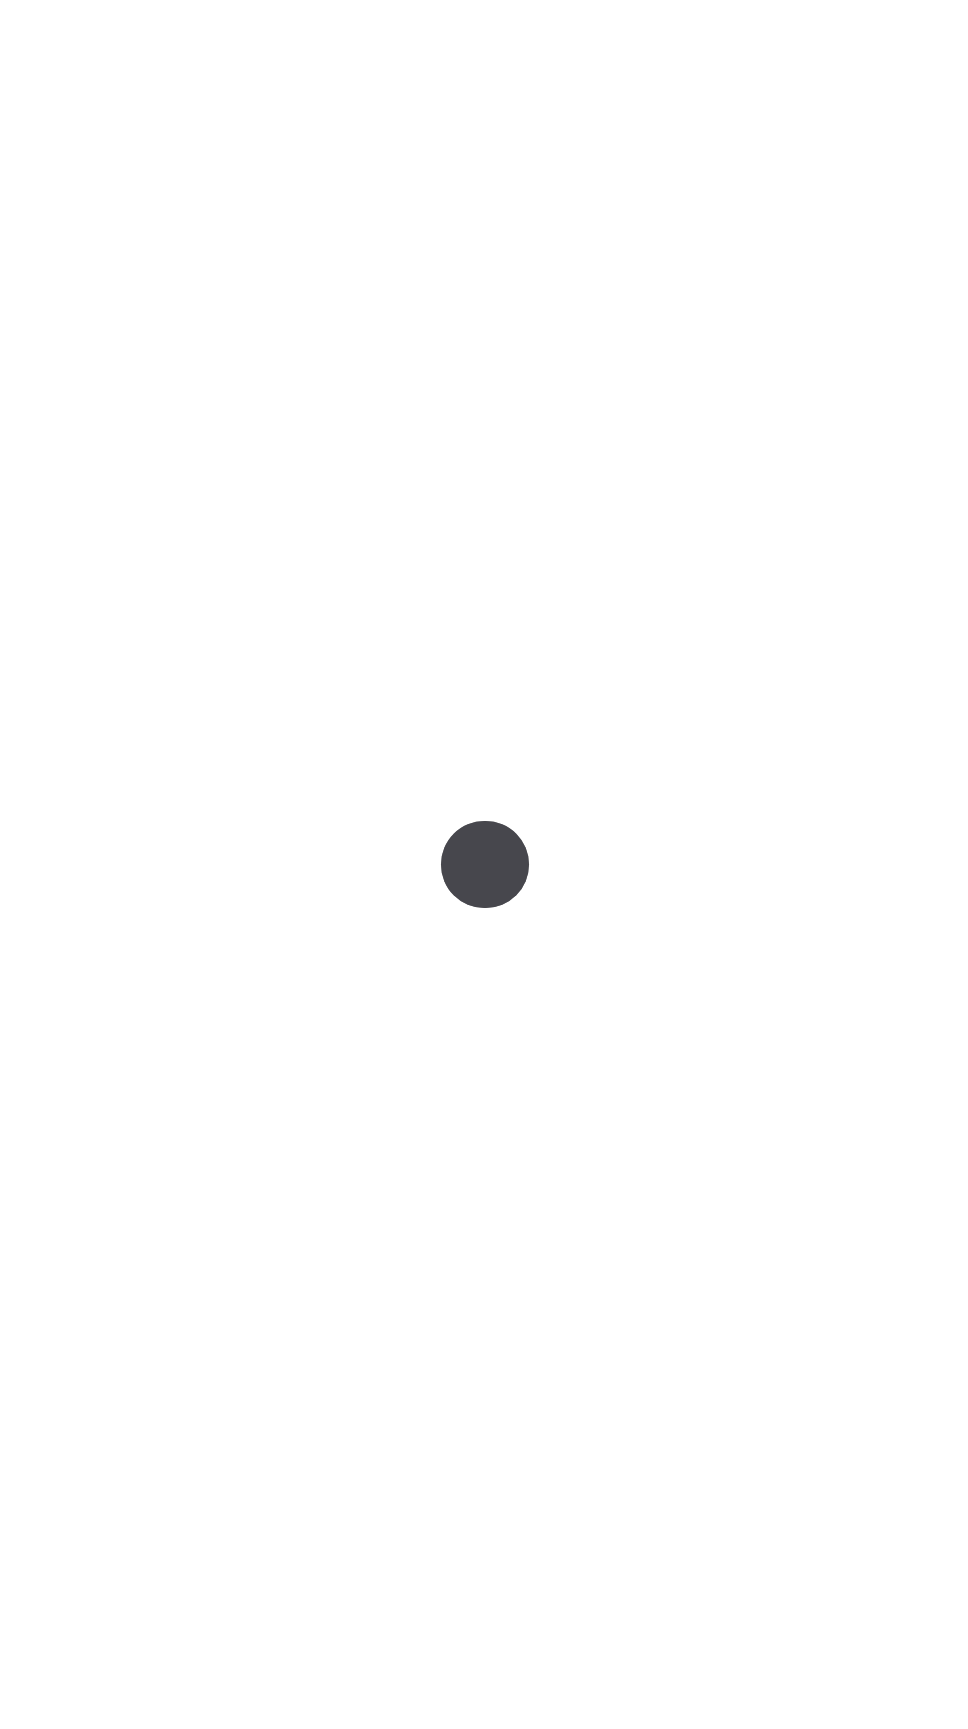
void draw(SkCanvas* canvas) {
    SkPaint paint;
    paint.setAntiAlias(true);
    canvas->clear(0xFFFFFFFF);
    paint.setColor(0xFF65656A);
    canvas->drawRoundRect(SkRect::MakeXYWH(441, 821, 88, 87), 43.5f, 43.5f, paint);
    paint.setColor(0xCC3F3E45);
    canvas->drawRoundRect(SkRect::MakeXYWH(441, 821, 88, 87), 43.5f, 43.5f, paint);
}
